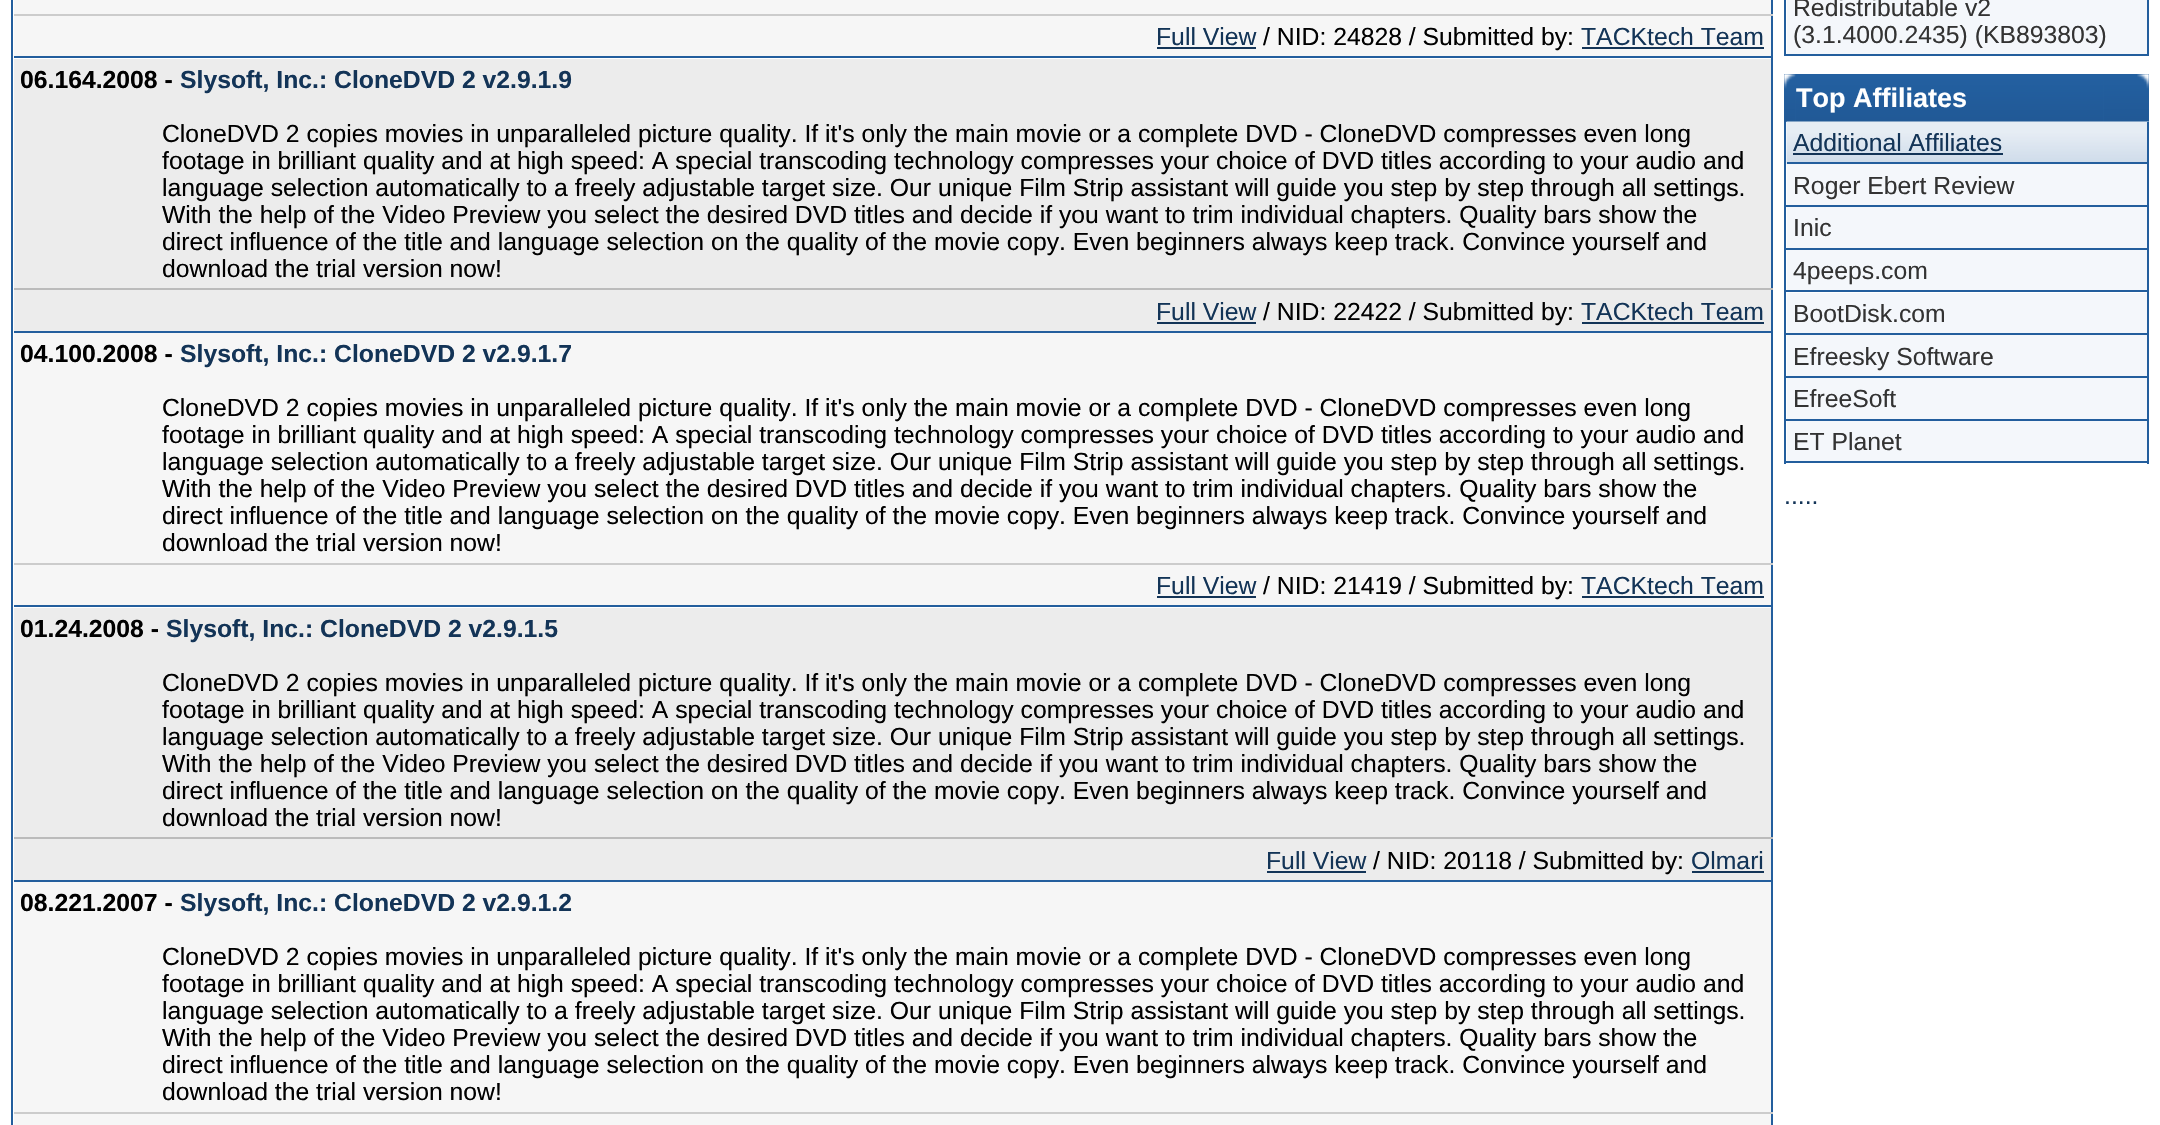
void draw(SkCanvas* canvas) {
    SkPaint paint;
    paint.setAntiAlias(true);
    canvas->clear(0xFFFFFFFF);
    paint.setColor(0xFF235E9D);
    canvas->drawRect(SkRect::MakeXYWH(11, 0, 2, 1125), paint);
    paint.setColor(0xFFF6F6F6);
    canvas->drawRect(SkRect::MakeXYWH(14, 0, 1757, 14), paint);
    paint.setColor(0xFF235E9D);
    canvas->drawRect(SkRect::MakeXYWH(1771, 0, 2, 1125), paint);
    paint.setColor(0xFFCCCCCC);
    canvas->drawRect(SkRect::MakeXYWH(14, 14, 1759, 2), paint);
    paint.setColor(0xFFF6F6F6);
    canvas->drawRect(SkRect::MakeXYWH(14, 16, 1757, 40), paint);
    paint.setColor(0xFF235E9D);
    canvas->drawRect(SkRect::MakeXYWH(14, 56, 1759, 2), paint);
    SkFont font1(fontMgr->matchFamilyStyle("Liberation Sans", SkFontStyle::Normal()), 24.75f);
    font1.setSubpixel(true);
    paint.setColor(0xFF133457);
    canvas->drawString("Full View", 1156, 45, font1, paint);
    canvas->drawRect(SkRect::MakeXYWH(1157, 47, 99, 2), paint);
    paint.setColor(0xFF000000);
    canvas->drawString("/ NID: 24828 / Submitted by:", 1263, 45, font1, paint);
    paint.setColor(0xFF133457);
    canvas->drawString("TACKtech Team", 1581, 45, font1, paint);
    canvas->drawRect(SkRect::MakeXYWH(1582, 47, 182, 2), paint);
    paint.setColor(0xFFECECEC);
    canvas->drawRect(SkRect::MakeXYWH(14, 59, 1757, 229), paint);
    paint.setColor(0xFFBBBBBB);
    canvas->drawRect(SkRect::MakeXYWH(14, 288, 1759, 2), paint);
    SkFont font2(fontMgr->matchFamilyStyle("Liberation Sans", SkFontStyle::Bold()), 24.75f);
    font2.setSubpixel(true);
    paint.setColor(0xFF000000);
    canvas->drawString("06.164.2008 -", 20, 88, font2, paint);
    paint.setColor(0xFF133457);
    canvas->drawString("Slysoft, Inc.: CloneDVD 2 v2.9.1.9", 180, 88, font2, paint);
    paint.setColor(0xFF000000);
    canvas->drawString("CloneDVD 2 copies movies in unparalleled picture quality. If it's only the main movie or a complete DVD - CloneDVD compresses even long", 162, 142, font1, paint);
    canvas->drawString("footage in brilliant quality and at high speed: A special transcoding technology compresses your choice of DVD titles according to your audio and", 162, 169, font1, paint);
    canvas->drawString("language selection automatically to a freely adjustable target size. Our unique Film Strip assistant will guide you step by step through all settings.", 162, 196, font1, paint);
    canvas->drawString("With the help of the Video Preview you select the desired DVD titles and decide if you want to trim individual chapters. Quality bars show the", 162, 223, font1, paint);
    canvas->drawString("direct influence of the title and language selection on the quality of the movie copy. Even beginners always keep track. Convince yourself and", 162, 250, font1, paint);
    canvas->drawString("download the trial version now!", 162, 277, font1, paint);
    paint.setColor(0xFFECECEC);
    canvas->drawRect(SkRect::MakeXYWH(14, 290, 1757, 41), paint);
    paint.setColor(0xFF235E9D);
    canvas->drawRect(SkRect::MakeXYWH(14, 331, 1759, 2), paint);
    paint.setColor(0xFF133457);
    canvas->drawString("Full View", 1156, 320, font1, paint);
    canvas->drawRect(SkRect::MakeXYWH(1157, 322, 99, 2), paint);
    paint.setColor(0xFF000000);
    canvas->drawString("/ NID: 22422 / Submitted by:", 1263, 320, font1, paint);
    paint.setColor(0xFF133457);
    canvas->drawString("TACKtech Team", 1581, 320, font1, paint);
    canvas->drawRect(SkRect::MakeXYWH(1582, 322, 182, 2), paint);
    paint.setColor(0xFFF6F6F6);
    canvas->drawRect(SkRect::MakeXYWH(14, 333, 1757, 230), paint);
    paint.setColor(0xFFCCCCCC);
    canvas->drawRect(SkRect::MakeXYWH(14, 563, 1759, 2), paint);
    paint.setColor(0xFF000000);
    canvas->drawString("04.100.2008 -", 20, 362, font2, paint);
    paint.setColor(0xFF133457);
    canvas->drawString("Slysoft, Inc.: CloneDVD 2 v2.9.1.7", 180, 362, font2, paint);
    paint.setColor(0xFF000000);
    canvas->drawString("CloneDVD 2 copies movies in unparalleled picture quality. If it's only the main movie or a complete DVD - CloneDVD compresses even long", 162, 416, font1, paint);
    canvas->drawString("footage in brilliant quality and at high speed: A special transcoding technology compresses your choice of DVD titles according to your audio and", 162, 443, font1, paint);
    canvas->drawString("language selection automatically to a freely adjustable target size. Our unique Film Strip assistant will guide you step by step through all settings.", 162, 470, font1, paint);
    canvas->drawString("With the help of the Video Preview you select the desired DVD titles and decide if you want to trim individual chapters. Quality bars show the", 162, 497, font1, paint);
    canvas->drawString("direct influence of the title and language selection on the quality of the movie copy. Even beginners always keep track. Convince yourself and", 162, 524, font1, paint);
    canvas->drawString("download the trial version now!", 162, 551, font1, paint);
    paint.setColor(0xFFF6F6F6);
    canvas->drawRect(SkRect::MakeXYWH(14, 565, 1757, 40), paint);
    paint.setColor(0xFF235E9D);
    canvas->drawRect(SkRect::MakeXYWH(14, 605, 1759, 2), paint);
    paint.setColor(0xFF133457);
    canvas->drawString("Full View", 1156, 594, font1, paint);
    canvas->drawRect(SkRect::MakeXYWH(1157, 596, 99, 2), paint);
    paint.setColor(0xFF000000);
    canvas->drawString("/ NID: 21419 / Submitted by:", 1263, 594, font1, paint);
    paint.setColor(0xFF133457);
    canvas->drawString("TACKtech Team", 1581, 594, font1, paint);
    canvas->drawRect(SkRect::MakeXYWH(1582, 596, 182, 2), paint);
    paint.setColor(0xFFECECEC);
    canvas->drawRect(SkRect::MakeXYWH(14, 608, 1757, 229), paint);
    paint.setColor(0xFFBBBBBB);
    canvas->drawRect(SkRect::MakeXYWH(14, 837, 1759, 2), paint);
    paint.setColor(0xFF000000);
    canvas->drawString("01.24.2008 -", 20, 637, font2, paint);
    paint.setColor(0xFF133457);
    canvas->drawString("Slysoft, Inc.: CloneDVD 2 v2.9.1.5", 166, 637, font2, paint);
    paint.setColor(0xFF000000);
    canvas->drawString("CloneDVD 2 copies movies in unparalleled picture quality. If it's only the main movie or a complete DVD - CloneDVD compresses even long", 162, 691, font1, paint);
    canvas->drawString("footage in brilliant quality and at high speed: A special transcoding technology compresses your choice of DVD titles according to your audio and", 162, 718, font1, paint);
    canvas->drawString("language selection automatically to a freely adjustable target size. Our unique Film Strip assistant will guide you step by step through all settings.", 162, 745, font1, paint);
    canvas->drawString("With the help of the Video Preview you select the desired DVD titles and decide if you want to trim individual chapters. Quality bars show the", 162, 772, font1, paint);
    canvas->drawString("direct influence of the title and language selection on the quality of the movie copy. Even beginners always keep track. Convince yourself and", 162, 799, font1, paint);
    canvas->drawString("download the trial version now!", 162, 826, font1, paint);
    paint.setColor(0xFFECECEC);
    canvas->drawRect(SkRect::MakeXYWH(14, 839, 1757, 41), paint);
    paint.setColor(0xFF235E9D);
    canvas->drawRect(SkRect::MakeXYWH(14, 880, 1759, 2), paint);
    paint.setColor(0xFF133457);
    canvas->drawString("Full View", 1266, 869, font1, paint);
    canvas->drawRect(SkRect::MakeXYWH(1267, 871, 99, 2), paint);
    paint.setColor(0xFF000000);
    canvas->drawString("/ NID: 20118 / Submitted by:", 1373, 869, font1, paint);
    paint.setColor(0xFF133457);
    canvas->drawString("Olmari", 1691, 869, font1, paint);
    canvas->drawRect(SkRect::MakeXYWH(1692, 871, 72, 2), paint);
    paint.setColor(0xFFF6F6F6);
    canvas->drawRect(SkRect::MakeXYWH(14, 882, 1757, 230), paint);
    paint.setColor(0xFFCCCCCC);
    canvas->drawRect(SkRect::MakeXYWH(14, 1112, 1759, 2), paint);
    paint.setColor(0xFF000000);
    canvas->drawString("08.221.2007 -", 20, 911, font2, paint);
    paint.setColor(0xFF133457);
    canvas->drawString("Slysoft, Inc.: CloneDVD 2 v2.9.1.2", 180, 911, font2, paint);
    paint.setColor(0xFF000000);
    canvas->drawString("CloneDVD 2 copies movies in unparalleled picture quality. If it's only the main movie or a complete DVD - CloneDVD compresses even long", 162, 965, font1, paint);
    canvas->drawString("footage in brilliant quality and at high speed: A special transcoding technology compresses your choice of DVD titles according to your audio and", 162, 992, font1, paint);
    canvas->drawString("language selection automatically to a freely adjustable target size. Our unique Film Strip assistant will guide you step by step through all settings.", 162, 1019, font1, paint);
    canvas->drawString("With the help of the Video Preview you select the desired DVD titles and decide if you want to trim individual chapters. Quality bars show the", 162, 1046, font1, paint);
    canvas->drawString("direct influence of the title and language selection on the quality of the movie copy. Even beginners always keep track. Convince yourself and", 162, 1073, font1, paint);
    canvas->drawString("download the trial version now!", 162, 1100, font1, paint);
    paint.setColor(0xFFF6F6F6);
    canvas->drawRect(SkRect::MakeXYWH(14, 1114, 1757, 11), paint);
    paint.setColor(0xFFF4F7FB);
    canvas->drawRect(SkRect::MakeXYWH(1787, 0, 360, 54), paint);
    paint.setColor(0xFF235E9D);
    canvas->drawRect(SkRect::MakeXYWH(2147, 0, 2, 56), paint);
    canvas->drawRect(SkRect::MakeXYWH(1784, 54, 365, 2), paint);
    canvas->drawRect(SkRect::MakeXYWH(1784, 0, 2, 56), paint);
    paint.setColor(0xFF333333);
    canvas->drawString("Redistributable v2", 1793, 16, font1, paint);
    canvas->drawString("(3.1.4000.2435) (KB893803)", 1793, 43, font1, paint);
    paint.setColor(0xFF235E9D);
    canvas->drawRect(SkRect::MakeXYWH(1784, 74, 365, 48), paint);
    canvas->drawImageRect(SkImages::DeferredFromEncodedData(SkData::MakeFromFileName("img1.png")), SkRect::MakeXYWH(1784, 74, 12, 48), SkSamplingOptions());
    canvas->drawImageRect(SkImages::DeferredFromEncodedData(SkData::MakeFromFileName("img2.png")), SkRect::MakeXYWH(1795, 74, 309, 48), SkSamplingOptions());
    SkFont font3(fontMgr->matchFamilyStyle("Liberation Sans", SkFontStyle::Bold()), 27);
    font3.setSubpixel(true);
    paint.setColor(0xFFFFFFFF);
    canvas->drawString("Top Affiliates", 1796, 107, font3, paint);
    canvas->drawImageRect(SkImages::DeferredFromEncodedData(SkData::MakeFromFileName("img3.png")), SkRect::MakeXYWH(2104, 74, 45, 48), SkSamplingOptions());
    paint.setColor(0xFF235E9D);
    canvas->drawRect(SkRect::MakeXYWH(1784, 122, 2, 42), paint);
    canvas->drawImageRect(SkImages::DeferredFromEncodedData(SkData::MakeFromFileName("img4.png")), SkRect::MakeXYWH(1786, 121, 363, 44), SkSamplingOptions());
    canvas->drawRect(SkRect::MakeXYWH(2147, 122, 2, 342), paint);
    canvas->drawRect(SkRect::MakeXYWH(1787, 162, 362, 2), paint);
    paint.setColor(0xFF133457);
    canvas->drawString("Additional Affiliates", 1793, 151, font1, paint);
    canvas->drawRect(SkRect::MakeXYWH(1793, 153, 210, 2), paint);
    paint.setColor(0xFFF4F7FB);
    canvas->drawRect(SkRect::MakeXYWH(1787, 165, 360, 40), paint);
    paint.setColor(0xFF235E9D);
    canvas->drawRect(SkRect::MakeXYWH(1784, 205, 365, 2), paint);
    canvas->drawRect(SkRect::MakeXYWH(1784, 164, 2, 43), paint);
    paint.setColor(0xFF333333);
    canvas->drawString("Roger Ebert Review", 1793, 194, font1, paint);
    paint.setColor(0xFFF4F7FB);
    canvas->drawRect(SkRect::MakeXYWH(1787, 207, 360, 41), paint);
    paint.setColor(0xFF235E9D);
    canvas->drawRect(SkRect::MakeXYWH(1784, 248, 365, 2), paint);
    canvas->drawRect(SkRect::MakeXYWH(1784, 207, 2, 43), paint);
    paint.setColor(0xFF333333);
    canvas->drawString("Inic", 1793, 236, font1, paint);
    paint.setColor(0xFFF4F7FB);
    canvas->drawRect(SkRect::MakeXYWH(1787, 250, 360, 40), paint);
    paint.setColor(0xFF235E9D);
    canvas->drawRect(SkRect::MakeXYWH(1784, 290, 365, 2), paint);
    canvas->drawRect(SkRect::MakeXYWH(1784, 250, 2, 43), paint);
    paint.setColor(0xFF333333);
    canvas->drawString("4peeps.com", 1793, 279, font1, paint);
    paint.setColor(0xFFF4F7FB);
    canvas->drawRect(SkRect::MakeXYWH(1787, 293, 360, 40), paint);
    paint.setColor(0xFF235E9D);
    canvas->drawRect(SkRect::MakeXYWH(1784, 333, 365, 2), paint);
    canvas->drawRect(SkRect::MakeXYWH(1784, 293, 2, 42), paint);
    paint.setColor(0xFF333333);
    canvas->drawString("BootDisk.com", 1793, 322, font1, paint);
    paint.setColor(0xFFF4F7FB);
    canvas->drawRect(SkRect::MakeXYWH(1787, 335, 360, 41), paint);
    paint.setColor(0xFF235E9D);
    canvas->drawRect(SkRect::MakeXYWH(1784, 376, 365, 2), paint);
    canvas->drawRect(SkRect::MakeXYWH(1784, 335, 2, 43), paint);
    paint.setColor(0xFF333333);
    canvas->drawString("Efreesky Software", 1793, 365, font1, paint);
    paint.setColor(0xFFF4F7FB);
    canvas->drawRect(SkRect::MakeXYWH(1787, 378, 360, 41), paint);
    paint.setColor(0xFF235E9D);
    canvas->drawRect(SkRect::MakeXYWH(1784, 419, 365, 2), paint);
    canvas->drawRect(SkRect::MakeXYWH(1784, 378, 2, 43), paint);
    paint.setColor(0xFF333333);
    canvas->drawString("EfreeSoft", 1793, 407, font1, paint);
    paint.setColor(0xFFF4F7FB);
    canvas->drawRect(SkRect::MakeXYWH(1787, 421, 360, 40), paint);
    paint.setColor(0xFF235E9D);
    canvas->drawRect(SkRect::MakeXYWH(1784, 461, 365, 2), paint);
    canvas->drawRect(SkRect::MakeXYWH(1784, 421, 2, 43), paint);
    paint.setColor(0xFF333333);
    canvas->drawString("ET Planet", 1793, 450, font1, paint);
    paint.setColor(0xFF133457);
    canvas->drawString(".....", 1784, 504, font1, paint);
}
